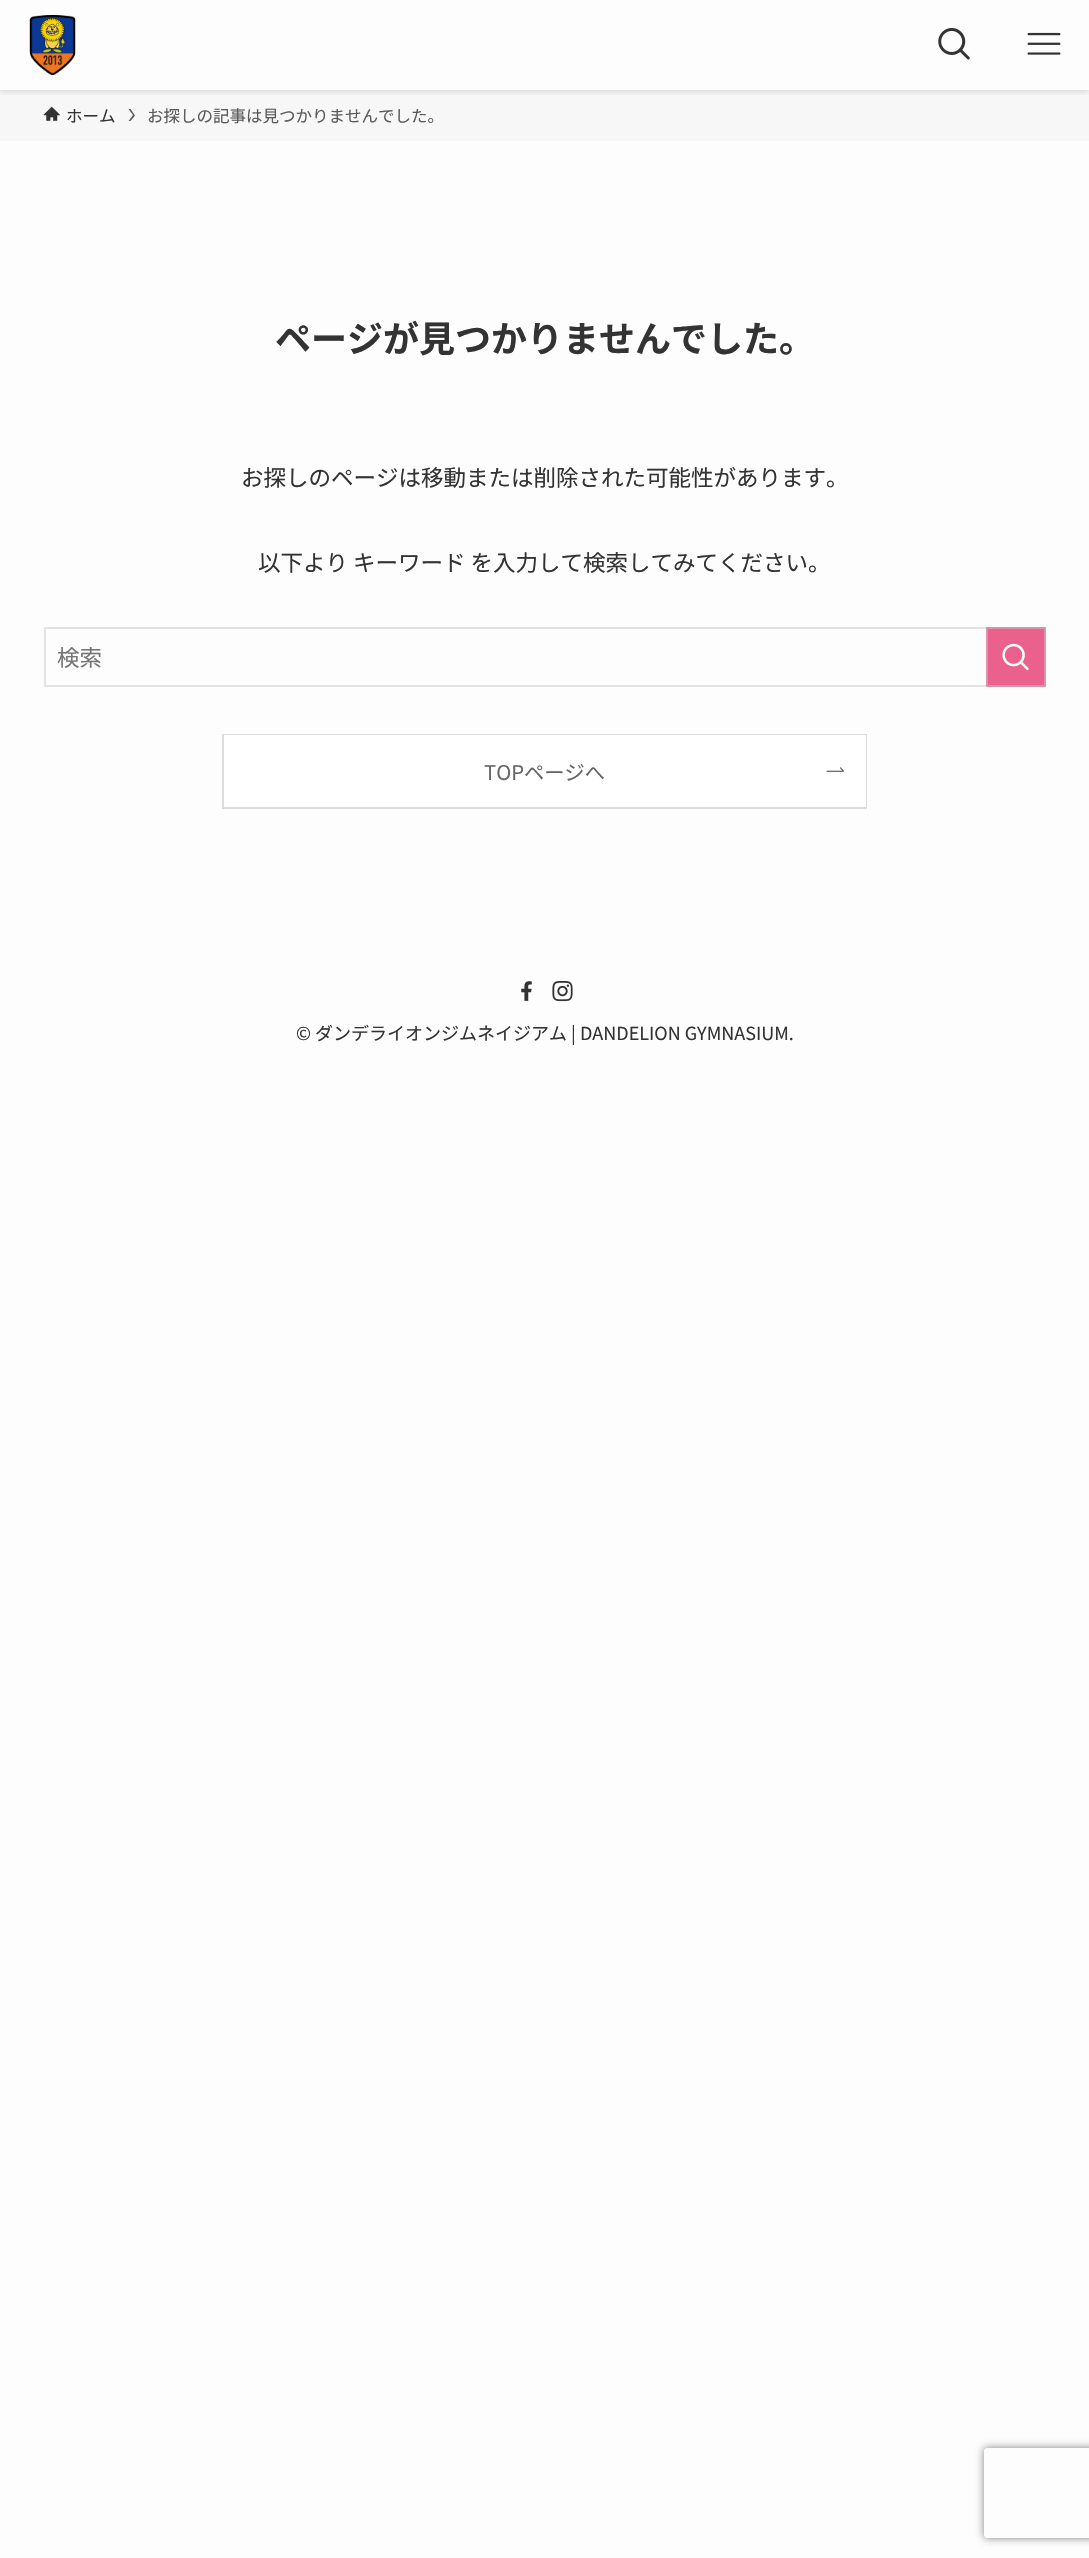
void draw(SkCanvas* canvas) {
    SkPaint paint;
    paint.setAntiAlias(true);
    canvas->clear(0xFFFDFDFD);
    paint.setColor(0xFFF7F7F7);
    canvas->drawRect(SkRect::MakeXYWH(0, 90, 1089, 51), paint);
    canvas->save();
    canvas->clipRect(SkRect::MakeXYWH(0, 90, 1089, 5));
    paint.setColor(0x1F000000);
    paint.setMaskFilter(SkMaskFilter::MakeBlur(kNormal_SkBlurStyle, 3));
    canvas->drawRect(SkRect::MakeXYWH(0, 2, 1089, 90), paint);
    paint.setMaskFilter(nullptr);
    canvas->restore();
    canvas->drawImageRect(SkImages::DeferredFromEncodedData(SkData::MakeFromFileName("img1.png")), SkRect::MakeXYWH(29, 15, 47, 60), SkSamplingOptions());
    canvas->drawImageRect(SkImages::DeferredFromEncodedData(SkData::MakeFromFileName("img2.png")), SkRect::MakeXYWH(938, 28, 32, 32), SkSamplingOptions());
    canvas->drawImageRect(SkImages::DeferredFromEncodedData(SkData::MakeFromFileName("img3.png")), SkRect::MakeXYWH(1027, 32, 34, 23), SkSamplingOptions());
    canvas->drawImageRect(SkImages::DeferredFromEncodedData(SkData::MakeFromFileName("img4.png")), SkRect::MakeXYWH(43, 106, 17, 15), SkSamplingOptions());
    SkFont font1(fontMgr->matchFamilyStyle("Noto Sans JP", SkFontStyle::Normal()), 16.5f);
    font1.setSubpixel(true);
    paint.setColor(0xFF333333);
    canvas->drawString("ホーム", 66, 122, font1, paint);
    paint.setColor(0xFF5A5A5A);
    canvas->drawPath(SkPathBuilder().moveTo(130.5f, 109).lineTo(128.5f, 109).lineTo(133, 115).lineTo(128.5f, 121).lineTo(130.5f, 121).lineTo(135, 115.5f).close().detach(), paint);
    canvas->drawString("お探しの記事は見つかりませんでした。", 147, 122, font1, paint);
    SkFont font2(fontMgr->matchFamilyStyle("Noto Sans JP", SkFontStyle::Bold()), 36);
    font2.setSubpixel(true);
    paint.setColor(0xFF333333);
    canvas->drawString("ページが見つかりませんでした。", 275, 352, font2, paint);
    SkFont font3(fontMgr->matchFamilyStyle("Noto Sans JP", SkFontStyle::Normal()), 22.5f);
    font3.setSubpixel(true);
    canvas->drawString("お探しのページは移動または削除された可能性があります。", 241, 486, font3, paint);
    canvas->drawString("以下より キーワード を入力して検索してみてください。", 258, 571, font3, paint);
    paint.setStyle(SkPaint::kStroke_Style);
    paint.setStrokeWidth(2);
    paint.setColor(0xFFE3E3E3);
    canvas->drawRect(SkRect::MakeXYWH(45, 628, 1000, 58), paint);
    paint.setStyle(SkPaint::kFill_Style);
    paint.setColor(0xFF757575);
    canvas->drawString("検索", 57, 666, font3, paint);
    paint.setColor(0xFFEA618E);
    canvas->drawRect(SkRect::MakeXYWH(987, 628, 58, 58), paint);
    paint.setStyle(SkPaint::kStroke_Style);
    paint.setColor(0xFFD994AB);
    canvas->drawRect(SkRect::MakeXYWH(987, 628, 58, 58), paint);
    canvas->drawImageRect(SkImages::DeferredFromEncodedData(SkData::MakeFromFileName("img5.png")), SkRect::MakeXYWH(1002, 643, 27, 28), SkSamplingOptions());
    paint.setColor(0xFFDCDCDC);
    canvas->drawRect(SkRect::MakeXYWH(223, 735, 643, 73), paint);
    paint.setStyle(SkPaint::kFill_Style);
    paint.setColor(0xFFFFFFFF);
    canvas->drawRect(SkRect::MakeXYWH(224, 735, 642, 72), paint);
    SkFont font4(fontMgr->matchFamilyStyle("Noto Sans JP", SkFontStyle::Normal()), 20.25f);
    font4.setSubpixel(true);
    paint.setColor(0xFF666666);
    canvas->drawString("TOPページへ", 484, 780, font4, paint);
    canvas->drawImageRect(SkImages::DeferredFromEncodedData(SkData::MakeFromFileName("img6.png")), SkRect::MakeXYWH(826, 767, 18, 5), SkSamplingOptions());
    canvas->drawImageRect(SkImages::DeferredFromEncodedData(SkData::MakeFromFileName("img7.png")), SkRect::MakeXYWH(521, 981, 11, 20), SkSamplingOptions());
    canvas->drawImageRect(SkImages::DeferredFromEncodedData(SkData::MakeFromFileName("img8.png")), SkRect::MakeXYWH(552, 981, 21, 21), SkSamplingOptions());
    SkFont font5(fontMgr->matchFamilyStyle("Noto Sans JP", SkFontStyle::Normal()), 18);
    font5.setSubpixel(true);
    paint.setColor(0xFF333333);
    canvas->drawString("© ダンデライオンジムネイジアム | DANDELION GYMNASIUM.", 296, 1040, font5, paint);
    canvas->save();
    canvas->clipPath(SkPathBuilder(SkPathFillType::kEvenOdd).moveTo(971, 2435).lineTo(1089, 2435).lineTo(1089, 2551).lineTo(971, 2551).close().moveTo(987, 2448).lineTo(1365, 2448).cubicTo(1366.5f, 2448, 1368, 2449.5f, 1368, 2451).lineTo(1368, 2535).cubicTo(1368, 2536.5f, 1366.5f, 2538, 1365, 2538).lineTo(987, 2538).cubicTo(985.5f, 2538, 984, 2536.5f, 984, 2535).lineTo(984, 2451).cubicTo(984, 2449.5f, 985.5f, 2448, 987, 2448).close().detach(), true);
    paint.setColor(0xFF808080);
    paint.setMaskFilter(SkMaskFilter::MakeBlur(kNormal_SkBlurStyle, 4));
    canvas->drawRoundRect(SkRect::MakeXYWH(984, 2448, 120, 90), 3, 3, paint);
    paint.setMaskFilter(nullptr);
    canvas->restore();
}
